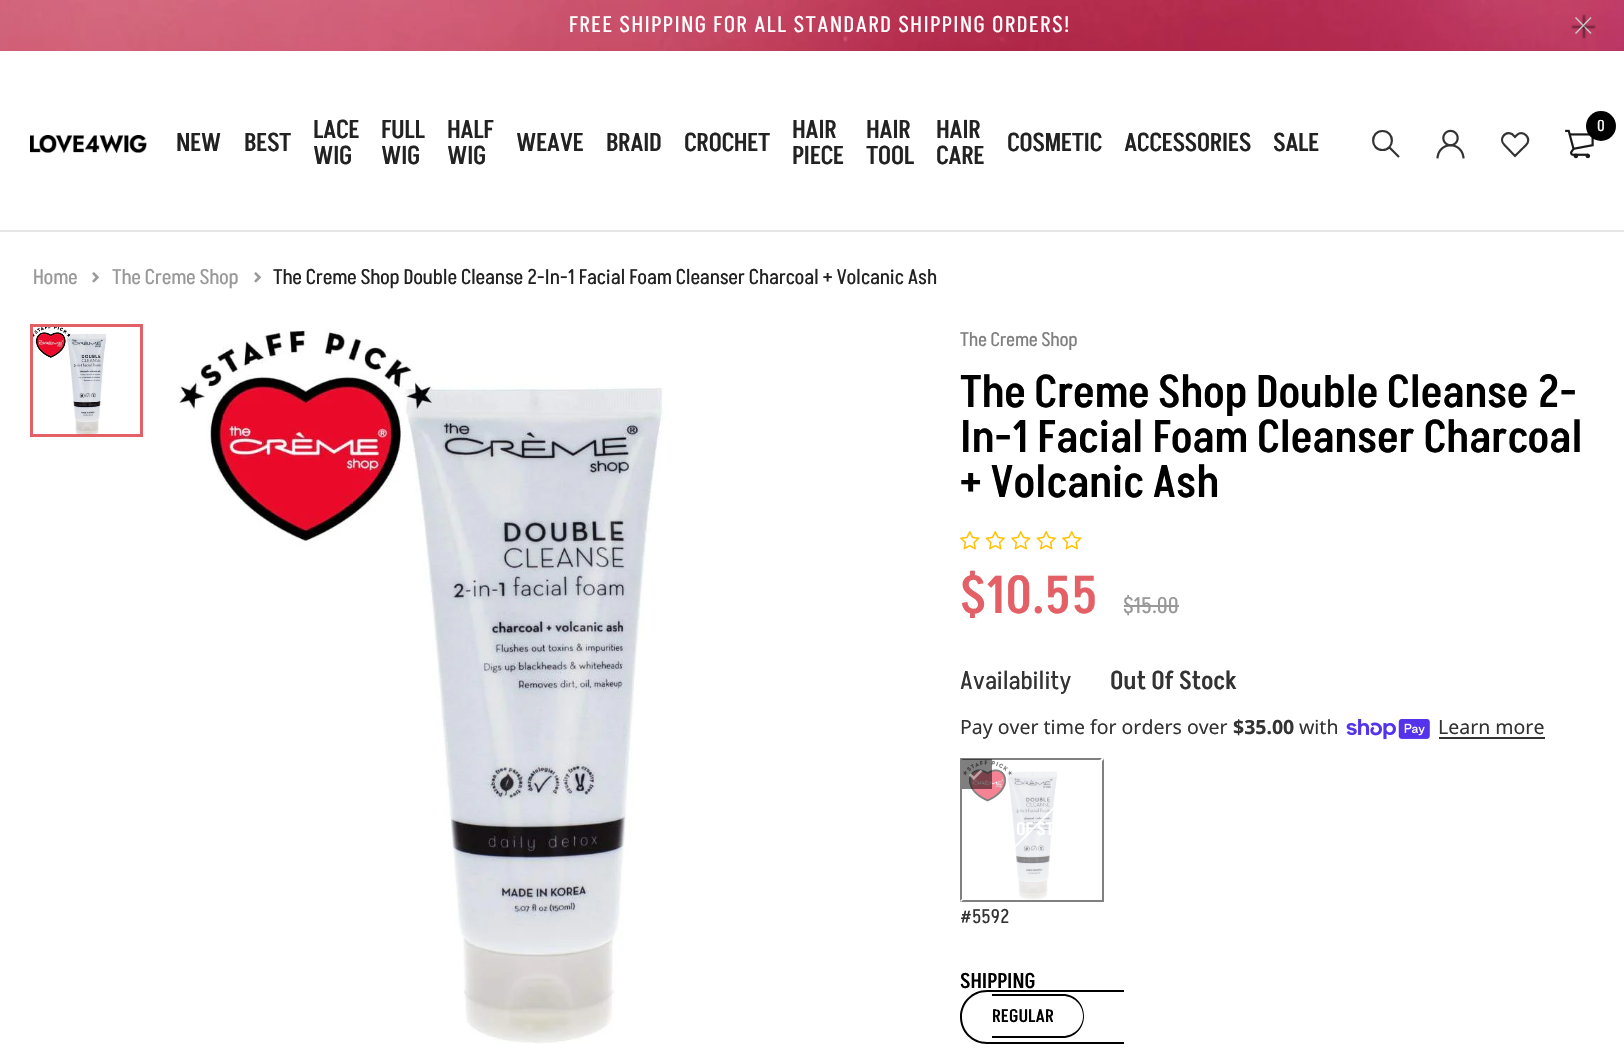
void draw(SkCanvas* canvas) {
    SkPaint paint;
    paint.setAntiAlias(true);
    auto spacedText = [&](const char* s, float x, float y, const SkFont& font, const SkPaint& ink, float letter, float word) {
        std::vector<SkGlyphID> glyphs(font.countText(s, strlen(s), SkTextEncoding::kUTF8));
        std::vector<float> xs(glyphs.size());
        font.textToGlyphs(s, strlen(s), SkTextEncoding::kUTF8, glyphs);
        font.getXPos(glyphs, xs, x);
        float extra = 0;
        for (size_t i = 0; i < glyphs.size(); i++) {
            xs[i] += extra;
            extra += letter + word * (glyphs[i] == font.unicharToGlyph(' '));
        }
        canvas->drawTextBlob(SkTextBlob::MakeFromPosHGlyphs(glyphs, xs, y, font), 0, 0, ink);
    };
    canvas->clear(0xFFFFFFFF);
    paint.setColor(0xFFE5E5E5);
    canvas->drawRect(SkRect::MakeXYWH(0, 230, 1624, 2), paint);
    canvas->drawImageRect(SkImages::DeferredFromEncodedData(SkData::MakeFromFileName("img1.png")), SkRect::MakeXYWH(0, 0, 1624, 51), SkSamplingOptions());
    SkFont font1(fontMgr->matchFamilyStyle("Akshar", SkFontStyle::Normal()), 22.5f);
    font1.setSubpixel(true);
    paint.setColor(0xFFFFFFFF);
    spacedText("FREE SHIPPING FOR ALL STANDARD SHIPPING ORDERS!", 569, 32, font1, paint, 1.5f, 0);
    paint.setColor(0x80000000);
    paint.setMaskFilter(SkMaskFilter::MakeBlur(kNormal_SkBlurStyle, 1));
    canvas->drawRect(SkRect::MakeXYWH(1572, 26, 23, 2), paint);
    paint.setMaskFilter(nullptr);
    paint.setColor(0xFFCCCCCC);
    canvas->drawPath(SkPathBuilder().moveTo(1576, 17).lineTo(1591.5f, 33).lineTo(1590.5f, 34).lineTo(1575, 18).close().detach(), paint);
    paint.setColor(0x80000000);
    paint.setMaskFilter(SkMaskFilter::MakeBlur(kNormal_SkBlurStyle, 1));
    canvas->drawRect(SkRect::MakeXYWH(1583, 15, 2, 23), paint);
    paint.setMaskFilter(nullptr);
    paint.setColor(0xFFCCCCCC);
    canvas->drawPath(SkPathBuilder().moveTo(1590.5f, 17).lineTo(1591.5f, 18).lineTo(1576, 34).lineTo(1575, 33).close().detach(), paint);
    SkFont font2(fontMgr->matchFamilyStyle("Akshar", SkFontStyle(500, SkFontStyle::kNormal_Width, SkFontStyle::kUpright_Slant)), 25.5f);
    font2.setSubpixel(true);
    paint.setColor(0xFF222222);
    spacedText("NEW", 176, 151, font2, paint, -0.5f, 0);
    spacedText("BEST", 244, 151, font2, paint, -0.5f, 0);
    spacedText("LACE", 313, 138, font2, paint, -0.5f, 0);
    spacedText("WIG", 313, 164, font2, paint, -0.5f, 0);
    spacedText("FULL", 381, 138, font2, paint, -0.5f, 0);
    spacedText("WIG", 381, 164, font2, paint, -0.5f, 0);
    spacedText("HALF", 447, 138, font2, paint, -0.5f, 0);
    spacedText("WIG", 447, 164, font2, paint, -0.5f, 0);
    spacedText("WEAVE", 516, 151, font2, paint, -0.5f, 0);
    spacedText("BRAID", 606, 151, font2, paint, -0.5f, 0);
    spacedText("CROCHET", 684, 151, font2, paint, -0.5f, 0);
    spacedText("HAIR", 792, 138, font2, paint, -0.5f, 0);
    spacedText("PIECE", 792, 164, font2, paint, -0.5f, 0);
    spacedText("HAIR", 866, 138, font2, paint, -0.5f, 0);
    spacedText("TOOL", 866, 164, font2, paint, -0.5f, 0);
    spacedText("HAIR", 936, 138, font2, paint, -0.5f, 0);
    spacedText("CARE", 936, 164, font2, paint, -0.5f, 0);
    spacedText("COSMETIC", 1007, 151, font2, paint, -0.5f, 0);
    spacedText("ACCESSORIES", 1124, 151, font2, paint, -0.5f, 0);
    spacedText("SALE", 1273, 151, font2, paint, -0.5f, 0);
    canvas->drawImageRect(SkImages::DeferredFromEncodedData(SkData::MakeFromFileName("img2.png")), SkRect::MakeXYWH(1565, 129, 29, 30), SkSamplingOptions());
    paint.setColor(0xFF000000);
    canvas->drawCircle(1601, 126, 15, paint);
    SkFont font3(fontMgr->matchFamilyStyle("Akshar", SkFontStyle::Normal()), 16);
    font3.setSubpixel(true);
    paint.setColor(0xFFFFFFFF);
    spacedText("0", 1597, 131, font3, paint, -0.5f, 0);
    paint.setStyle(SkPaint::kStroke_Style);
    paint.setStrokeWidth(2.2f);
    paint.setColor(0xFF333333);
    canvas->drawPath(SkPathBuilder().moveTo(1382.5f, 150).cubicTo(1395, 150, 1395, 131, 1382.5f, 131).cubicTo(1370, 131, 1370, 150, 1382.5f, 150).close().moveTo(1399, 157).lineTo(1389, 147).detach(), paint);
    canvas->drawImageRect(SkImages::DeferredFromEncodedData(SkData::MakeFromFileName("img3.png")), SkRect::MakeXYWH(1436, 129, 29, 30), SkSamplingOptions());
    canvas->drawPath(SkPathBuilder().moveTo(1504.5f, 145).cubicTo(1498.5f, 139.5f, 1504.5f, 130.5f, 1512, 134).lineTo(1515, 137).cubicTo(1516.5f, 135.5f, 1517.5f, 134, 1519, 133.5f).cubicTo(1524.5f, 131.5f, 1530, 137.5f, 1527.5f, 143).cubicTo(1526.5f, 145, 1524, 147, 1522, 149).lineTo(1515, 156).close().detach(), paint);
    canvas->drawImageRect(SkImages::DeferredFromEncodedData(SkData::MakeFromFileName("img4.png")), SkRect::MakeXYWH(30, 135, 117, 18), SkSamplingOptions());
    SkFont font4(fontMgr->matchFamilyStyle("Akshar", SkFontStyle::Normal()), 21);
    font4.setSubpixel(true);
    paint.setStyle(SkPaint::kFill_Style);
    paint.setColor(0xFF999999);
    canvas->drawString("Home", 33, 284, font4, paint);
    canvas->drawImageRect(SkImages::DeferredFromEncodedData(SkData::MakeFromFileName("img5.png")), SkRect::MakeXYWH(92, 272, 7, 11), SkSamplingOptions());
    canvas->drawString("The Creme Shop", 112, 284, font4, paint);
    canvas->drawImageRect(SkImages::DeferredFromEncodedData(SkData::MakeFromFileName("img5.png")), SkRect::MakeXYWH(254, 272, 7, 11), SkSamplingOptions());
    paint.setColor(0xFF222222);
    canvas->drawString("The Creme Shop Double Cleanse 2-In-1 Facial Foam Cleanser Charcoal + Volcanic Ash", 273, 284, font4, paint);
    canvas->drawImageRect(SkImages::DeferredFromEncodedData(SkData::MakeFromFileName("img6.png")), SkRect::MakeXYWH(33, 327, 74, 107), SkSamplingOptions());
    paint.setStyle(SkPaint::kStroke_Style);
    paint.setStrokeWidth(3);
    paint.setColor(0xFFE26066);
    canvas->drawRect(SkRect::MakeXYWH(31.5f, 325.5f, 110, 110), paint);
    canvas->drawImageRect(SkImages::DeferredFromEncodedData(SkData::MakeFromFileName("img7.png")), SkRect::MakeXYWH(178, 329, 490, 715), SkSamplingOptions());
    SkFont font5(fontMgr->matchFamilyStyle("Akshar", SkFontStyle::Normal()), 19.5f);
    font5.setSubpixel(true);
    paint.setStyle(SkPaint::kFill_Style);
    paint.setColor(0xFF808080);
    canvas->drawString("The Creme Shop", 960, 346, font5, paint);
    SkFont font6(fontMgr->matchFamilyStyle("Akshar", SkFontStyle(500, SkFontStyle::kNormal_Width, SkFontStyle::kUpright_Slant)), 45);
    font6.setSubpixel(true);
    paint.setColor(0xFF000000);
    canvas->drawString("The Creme Shop Double Cleanse 2-", 960, 407, font6, paint);
    canvas->drawString("In-1 Facial Foam Cleanser Charcoal", 960, 452, font6, paint);
    canvas->drawString("+ Volcanic Ash", 960, 497, font6, paint);
    canvas->drawImageRect(SkImages::DeferredFromEncodedData(SkData::MakeFromFileName("img8.png")), SkRect::MakeXYWH(960, 530, 20, 20), SkSamplingOptions());
    canvas->drawImageRect(SkImages::DeferredFromEncodedData(SkData::MakeFromFileName("img9.png")), SkRect::MakeXYWH(985, 530, 20, 20), SkSamplingOptions());
    canvas->drawImageRect(SkImages::DeferredFromEncodedData(SkData::MakeFromFileName("img8.png")), SkRect::MakeXYWH(1011, 530, 20, 20), SkSamplingOptions());
    canvas->drawImageRect(SkImages::DeferredFromEncodedData(SkData::MakeFromFileName("img9.png")), SkRect::MakeXYWH(1036, 530, 20, 20), SkSamplingOptions());
    canvas->drawImageRect(SkImages::DeferredFromEncodedData(SkData::MakeFromFileName("img8.png")), SkRect::MakeXYWH(1062, 530, 20, 20), SkSamplingOptions());
    SkFont font7(fontMgr->matchFamilyStyle("Akshar", SkFontStyle(500, SkFontStyle::kNormal_Width, SkFontStyle::kUpright_Slant)), 52.5f);
    font7.setSubpixel(true);
    paint.setColor(0xFFE26066);
    canvas->drawString("$10.55", 960, 613, font7, paint);
    paint.setColor(0xFF999999);
    canvas->drawString("$15.00", 1123, 613, font1, paint);
    canvas->drawRect(SkRect::MakeXYWH(1124, 605, 55, 2), paint);
    SkFont font8(fontMgr->matchFamilyStyle("Akshar", SkFontStyle::Normal()), 25.5f);
    font8.setSubpixel(true);
    paint.setColor(0xFF333333);
    canvas->drawString("Availability", 960, 689, font8, paint);
    canvas->drawString("Out Of Stock", 1110, 689, font2, paint);
    SkFont font9(fontMgr->matchFamilyStyle("Noto Sans", SkFontStyle::Normal()), 19.5f);
    font9.setSubpixel(true);
    canvas->drawString("Pay over time for orders over", 960, 734, font9, paint);
    SkFont font10(fontMgr->matchFamilyStyle("Noto Sans", SkFontStyle::Bold()), 19.5f);
    font10.setSubpixel(true);
    canvas->drawString("$35.00", 1233, 734, font10, paint);
    canvas->drawString("with", 1299, 734, font9, paint);
    canvas->drawImageRect(SkImages::DeferredFromEncodedData(SkData::MakeFromFileName("img10.png")), SkRect::MakeXYWH(1346, 719, 84, 21), SkSamplingOptions());
    canvas->drawString("Learn more", 1438, 734, font9, paint);
    canvas->drawRect(SkRect::MakeXYWH(1439, 737, 106, 2), paint);
    canvas->drawImageRect(SkImages::DeferredFromEncodedData(SkData::MakeFromFileName("img11.png")), SkRect::MakeXYWH(963, 760, 95, 140), SkSamplingOptions());
    paint.setStyle(SkPaint::kStroke_Style);
    paint.setStrokeWidth(2);
    paint.setColor(0xFF808080);
    canvas->drawRect(SkRect::MakeXYWH(961, 759, 142, 142), paint);
    paint.setStyle(SkPaint::kFill_Style);
    paint.setColor(0x80000000);
    canvas->drawRect(SkRect::MakeXYWH(962, 759, 30, 30), paint);
    canvas->drawImageRect(SkImages::DeferredFromEncodedData(SkData::MakeFromFileName("img12.png")), SkRect::MakeXYWH(969, 770, 14, 10), SkSamplingOptions());
    paint.setColor(0xFFFFFFFF);
    canvas->drawPath(SkPathBuilder().moveTo(1103, 757).lineTo(1104, 759).lineTo(961, 902).lineTo(960, 901).close().detach(), paint);
    SkFont font11(fontMgr->matchFamilyStyle("Akshar", SkFontStyle(500, SkFontStyle::kNormal_Width, SkFontStyle::kUpright_Slant)), 18);
    font11.setSubpixel(true);
    canvas->drawString("OF ST", 1016, 835, font11, paint);
    paint.setColor(0xFF333333);
    canvas->drawString("#5592", 960, 923, font5, paint);
    SkFont font12(fontMgr->matchFamilyStyle("Akshar", SkFontStyle(500, SkFontStyle::kNormal_Width, SkFontStyle::kUpright_Slant)), 21);
    font12.setSubpixel(true);
    paint.setColor(0xFF000000);
    canvas->drawString("SHIPPING", 960, 988, font12, paint);
    canvas->drawPath(SkPathBuilder(SkPathFillType::kEvenOdd).moveTo(987, 990).lineTo(1124, 990).lineTo(1124, 1044).lineTo(987, 1044).cubicTo(972, 1044, 960, 1032, 960, 1017).cubicTo(960, 1002, 972, 990, 987, 990).close().moveTo(987, 992).lineTo(1124, 992).lineTo(1124, 1042).lineTo(987, 1042).cubicTo(973, 1042, 962, 1031, 962, 1017).cubicTo(962, 1003, 973, 992, 987, 992).close().detach(), paint);
    canvas->drawPath(SkPathBuilder(SkPathFillType::kEvenOdd).moveTo(992, 994).lineTo(1063, 994).cubicTo(1075, 994, 1084, 1004, 1084, 1016).cubicTo(1084, 1028, 1075, 1038, 1063, 1038).lineTo(992, 1038).close().moveTo(992, 996).lineTo(1063, 996).cubicTo(1074, 996, 1083, 1005, 1083, 1016).cubicTo(1083, 1027, 1074, 1036, 1063, 1036).lineTo(992, 1036).close().detach(), paint);
    canvas->drawString("REGULAR", 992, 1022, font11, paint);
}
